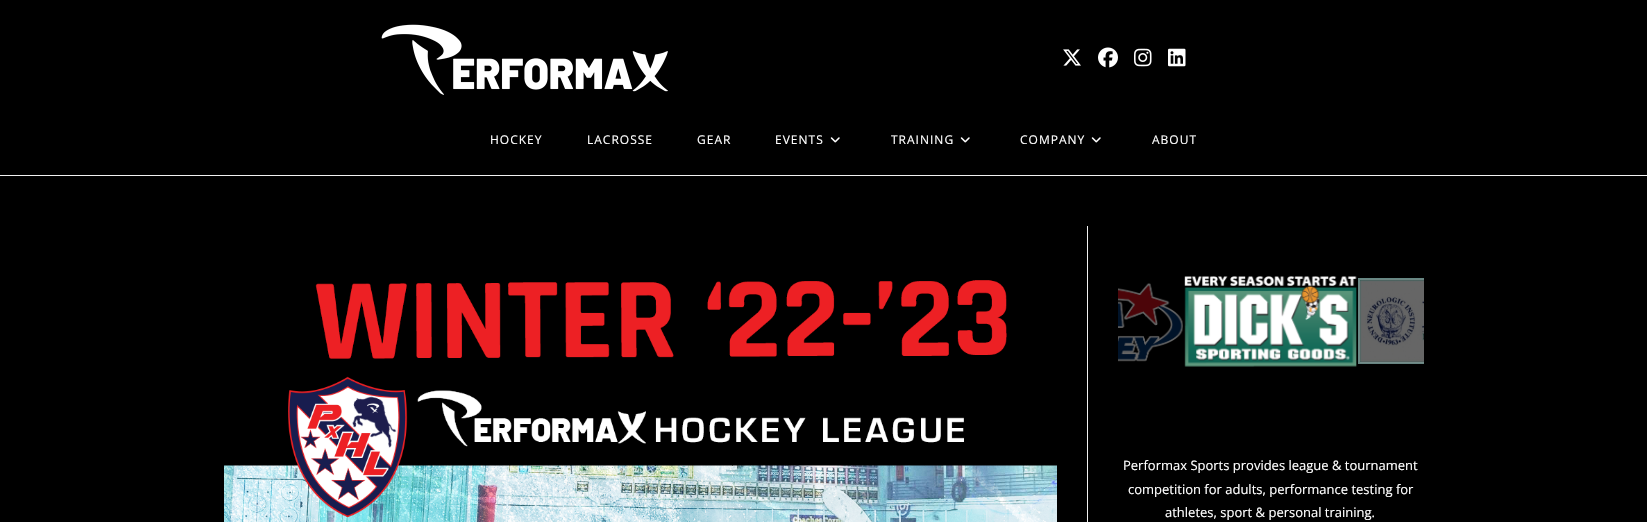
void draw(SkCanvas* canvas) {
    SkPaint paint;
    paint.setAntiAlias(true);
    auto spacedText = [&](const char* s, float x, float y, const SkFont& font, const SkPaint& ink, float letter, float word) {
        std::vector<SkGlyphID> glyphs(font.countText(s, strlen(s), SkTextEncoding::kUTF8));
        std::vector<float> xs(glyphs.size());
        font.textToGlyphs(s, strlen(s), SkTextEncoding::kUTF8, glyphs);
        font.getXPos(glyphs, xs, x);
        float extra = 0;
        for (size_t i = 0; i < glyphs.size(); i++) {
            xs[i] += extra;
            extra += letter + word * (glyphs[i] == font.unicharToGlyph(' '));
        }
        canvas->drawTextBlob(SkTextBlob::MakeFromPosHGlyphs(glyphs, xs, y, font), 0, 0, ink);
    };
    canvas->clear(0xFF000000);
    paint.setColor(0xFFF1F1F1);
    canvas->drawRect(SkRect::MakeXYWH(0, 175, 1647, 1), paint);
    canvas->drawImageRect(SkImages::DeferredFromEncodedData(SkData::MakeFromFileName("img1.png")), SkRect::MakeXYWH(381, 24, 287, 71), SkSamplingOptions());
    canvas->drawImageRect(SkImages::DeferredFromEncodedData(SkData::MakeFromFileName("img2.png")), SkRect::MakeXYWH(1063, 49, 18, 17), SkSamplingOptions());
    canvas->drawImageRect(SkImages::DeferredFromEncodedData(SkData::MakeFromFileName("img3.png")), SkRect::MakeXYWH(1098, 47, 20, 21), SkSamplingOptions());
    canvas->drawImageRect(SkImages::DeferredFromEncodedData(SkData::MakeFromFileName("img4.png")), SkRect::MakeXYWH(1134, 48, 18, 19), SkSamplingOptions());
    canvas->drawImageRect(SkImages::DeferredFromEncodedData(SkData::MakeFromFileName("img5.png")), SkRect::MakeXYWH(1168, 48, 18, 19), SkSamplingOptions());
    SkFont font1(fontMgr->matchFamilyStyle("Open Sans", SkFontStyle::Normal()), 12);
    font1.setSubpixel(true);
    paint.setColor(0xFFFFFFFF);
    spacedText("HOCKEY", 490, 144, font1, paint, 1, 0);
    spacedText("LACROSSE", 587, 144, font1, paint, 1, 0);
    spacedText("GEAR", 697, 144, font1, paint, 1, 0);
    spacedText("EVENTS", 775, 144, font1, paint, 1, 0);
    canvas->drawImageRect(SkImages::DeferredFromEncodedData(SkData::MakeFromFileName("img6.png")), SkRect::MakeXYWH(830, 137, 10, 6), SkSamplingOptions());
    spacedText("TRAINING", 891, 144, font1, paint, 1, 0);
    canvas->drawImageRect(SkImages::DeferredFromEncodedData(SkData::MakeFromFileName("img6.png")), SkRect::MakeXYWH(960, 137, 10, 6), SkSamplingOptions());
    spacedText("COMPANY", 1020, 144, font1, paint, 1, 0);
    canvas->drawImageRect(SkImages::DeferredFromEncodedData(SkData::MakeFromFileName("img6.png")), SkRect::MakeXYWH(1091, 137, 10, 6), SkSamplingOptions());
    spacedText("ABOUT", 1152, 144, font1, paint, 1, 0);
    paint.setColor(0xFFF1F1F1);
    canvas->drawRect(SkRect::MakeXYWH(1087, 226, 1, 296), paint);
    canvas->drawImageRect(SkImages::DeferredFromEncodedData(SkData::MakeFromFileName("img7.png")), SkRect::MakeXYWH(224, 280, 833, 242), SkSamplingOptions());
    canvas->drawImageRect(SkImages::DeferredFromEncodedData(SkData::MakeFromFileName("img8.png")), SkRect::MakeXYWH(1118, 283, 65, 79), SkSamplingOptions());
    canvas->drawImageRect(SkImages::DeferredFromEncodedData(SkData::MakeFromFileName("img9.png")), SkRect::MakeXYWH(1184, 276, 173, 91), SkSamplingOptions());
    canvas->drawImageRect(SkImages::DeferredFromEncodedData(SkData::MakeFromFileName("img10.png")), SkRect::MakeXYWH(1358, 278, 66, 86), SkSamplingOptions());
    canvas->save();
    canvas->clipRect(SkRect::MakeXYWH(1358, 251, 66, 140));
    paint.setStyle(SkPaint::kStroke_Style);
    paint.setStrokeWidth(2);
    paint.setColor(0x66FFFFFF);
    canvas->drawRect(SkRect::MakeXYWH(1359, 279, 173, 84), paint);
    canvas->restore();
    SkFont font2(fontMgr->matchFamilyStyle("Open Sans", SkFontStyle::Normal()), 13);
    font2.setSubpixel(true);
    paint.setStyle(SkPaint::kFill_Style);
    paint.setColor(0xFFFFFFFF);
    canvas->drawString("Performax Sports provides league & tournament", 1123, 470, font2, paint);
    canvas->drawString("competition for adults, performance testing for", 1128, 494, font2, paint);
    canvas->drawString("athletes, sport & personal training.", 1165, 517, font2, paint);
}
